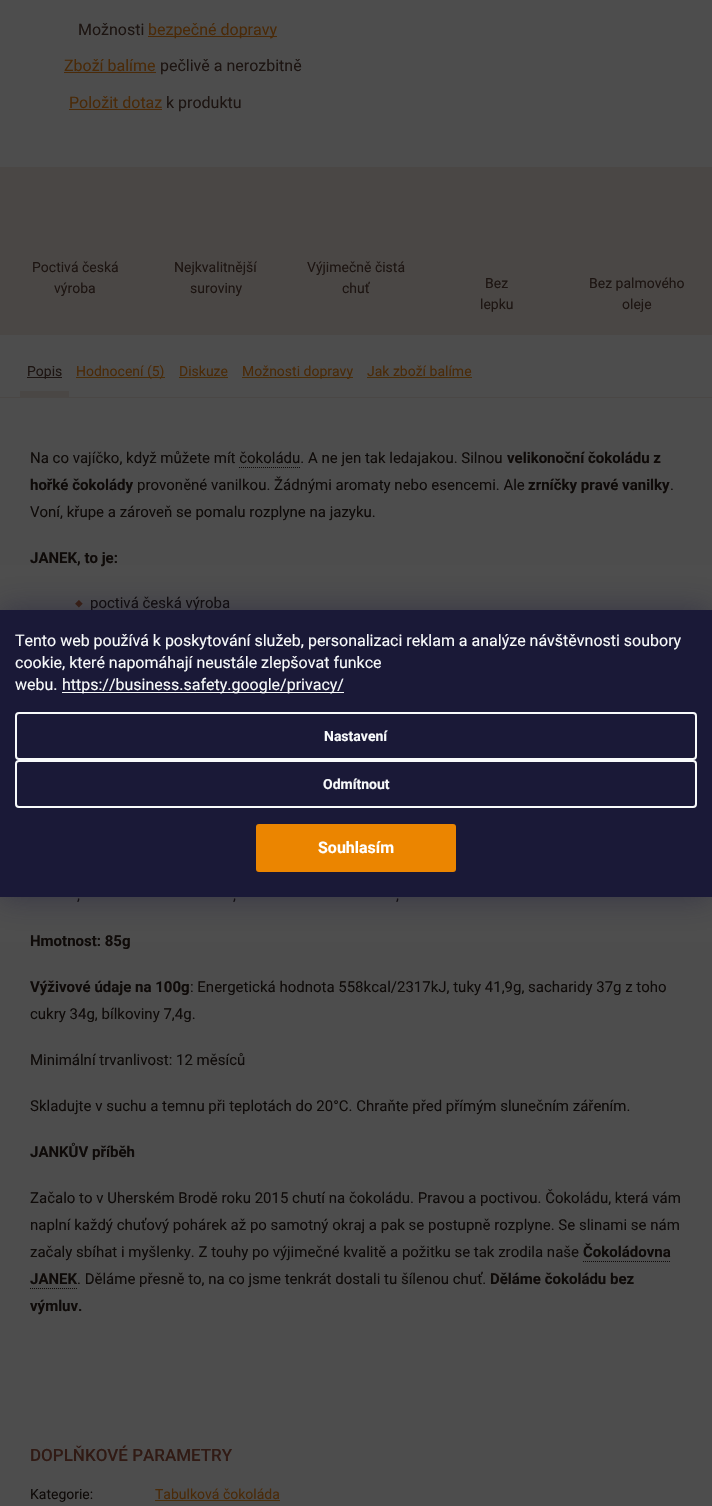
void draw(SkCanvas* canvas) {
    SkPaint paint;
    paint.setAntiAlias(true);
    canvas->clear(0xFF4D4D4D);
    SkFont font1(fontMgr->matchFamilyStyle("Roboto", SkFontStyle::Normal()), 16);
    font1.setSubpixel(true);
    paint.setColor(0xFF1C1411);
    canvas->drawString("Možnosti", 78, 35, font1, paint);
    paint.setColor(0xFF4A2A08);
    canvas->drawRect(SkRect::MakeXYWH(148, 36, 129, 1), paint);
    canvas->drawString("bezpečné dopravy", 148, 35, font1, paint);
    canvas->drawString("Zboží balíme", 64, 71, font1, paint);
    canvas->drawRect(SkRect::MakeXYWH(64, 72, 92, 1), paint);
    paint.setColor(0xFF1C1411);
    canvas->drawString("pečlivě a nerozbitně", 160, 71, font1, paint);
    paint.setColor(0xFF4A2A08);
    canvas->drawString("Položit dotaz", 69, 108, font1, paint);
    canvas->drawRect(SkRect::MakeXYWH(69, 109, 93, 1), paint);
    paint.setColor(0xFF1C1411);
    canvas->drawString("k produktu", 166, 108, font1, paint);
    paint.setColor(0xFF4A4745);
    canvas->drawRect(SkRect::MakeXYWH(0, 167, 712, 168), paint);
    SkFont font2(fontMgr->matchFamilyStyle("Roboto", SkFontStyle::Normal()), 14);
    font2.setSubpixel(true);
    paint.setColor(0xFF1C1411);
    canvas->drawString("Poctivá česká", 32, 272, font2, paint);
    canvas->drawString("výroba", 54, 293, font2, paint);
    canvas->drawString("Nejkvalitnější", 174, 272, font2, paint);
    canvas->drawString("suroviny", 190, 293, font2, paint);
    canvas->drawString("Výjimečně čistá", 307, 272, font2, paint);
    canvas->drawString("chuť", 342, 293, font2, paint);
    canvas->drawString("Bez", 485, 288, font2, paint);
    canvas->drawString("lepku", 480, 309, font2, paint);
    canvas->drawString("Bez palmového", 589, 288, font2, paint);
    canvas->drawString("oleje", 622, 309, font2, paint);
    paint.setColor(0xFF4A4745);
    canvas->drawRect(SkRect::MakeXYWH(0, 397, 712, 1), paint);
    canvas->drawRect(SkRect::MakeXYWH(20, 391, 49, 6), paint);
    paint.setColor(0xFF1C1411);
    canvas->drawRect(SkRect::MakeXYWH(27, 377, 35, 1), paint);
    canvas->drawString("Popis", 27, 376, font2, paint);
    paint.setColor(0xFF4A2E08);
    canvas->drawRect(SkRect::MakeXYWH(76, 377, 89, 1), paint);
    paint.setColor(0xFF4A2A08);
    canvas->drawString("Hodnocení (5)", 76, 376, font2, paint);
    canvas->drawString("Diskuze", 179, 376, font2, paint);
    paint.setColor(0xFF4A2E08);
    canvas->drawRect(SkRect::MakeXYWH(179, 377, 49, 1), paint);
    canvas->drawRect(SkRect::MakeXYWH(242, 377, 111, 1), paint);
    paint.setColor(0xFF4A2A08);
    canvas->drawString("Možnosti dopravy", 242, 376, font2, paint);
    canvas->drawString("Jak zboží balíme", 367, 376, font2, paint);
    paint.setColor(0xFF4A2E08);
    canvas->drawRect(SkRect::MakeXYWH(367, 377, 105, 1), paint);
    SkFont font3(fontMgr->matchFamilyStyle("Roboto", SkFontStyle::Normal()), 15);
    font3.setSubpixel(true);
    paint.setColor(0xFF0E0A08);
    canvas->drawString("Na co vajíčko, když můžete mít čokoládu. A ne jen tak ledajakou. Silnou", 30, 463, font3, paint);
    paint.setStyle(SkPaint::kStroke_Style);
    paint.setStrokeWidth(1);
    paint.setPathEffect(SkDashPathEffect::Make({{1, 1}}, 0));
    canvas->drawPath(SkPathBuilder().moveTo(239, 467.5f).lineTo(300, 467.5f).detach(), paint);
    paint.setPathEffect(nullptr);
    SkFont font4(fontMgr->matchFamilyStyle("Roboto", SkFontStyle::Bold()), 15);
    font4.setSubpixel(true);
    paint.setStyle(SkPaint::kFill_Style);
    canvas->drawString("velikonoční čokoládu z", 507, 463, font4, paint);
    canvas->drawString("hořké čokolády", 30, 490, font4, paint);
    canvas->drawString("provoněné vanilkou. Žádnými aromaty nebo esencemi. Ale", 137, 490, font3, paint);
    canvas->drawString("zrníčky pravé vanilky", 528, 490, font4, paint);
    canvas->drawString(".", 670, 490, font3, paint);
    canvas->drawString("Voní, křupe a zároveň se pomalu rozplyne na jazyku.", 30, 517, font3, paint);
    canvas->drawString("JANEK, to je:", 30, 563, font4, paint);
    canvas->drawImageRect(SkImages::DeferredFromEncodedData(SkData::MakeFromFileName("img1.png")), SkRect::MakeXYWH(75, 600, 8, 8), SkSamplingOptions());
    canvas->drawString("poctivá česká výroba", 90, 608, font3, paint);
    canvas->drawString(",", 77, 900, font3, paint);
    canvas->drawString(",", 233, 900, font3, paint);
    canvas->drawString(",", 396, 900, font3, paint);
    canvas->drawString("Hmotnost: 85g", 30, 946, font4, paint);
    canvas->drawString("Výživové údaje na 100g", 30, 992, font4, paint);
    canvas->drawString(": Energetická hodnota 558kcal/2317kJ, tuky 41,9g, sacharidy 37g z toho", 190, 992, font3, paint);
    canvas->drawString("cukry 34g, bílkoviny 7,4g.", 30, 1019, font3, paint);
    canvas->drawString("Minimální trvanlivost: 12 měsíců", 30, 1065, font3, paint);
    canvas->drawString("Skladujte v suchu a temnu při teplotách do 20°C. Chraňte před přímým slunečním zářením.", 30, 1111, font3, paint);
    canvas->drawString("JANKŮV příběh", 30, 1157, font4, paint);
    canvas->drawString("Začalo to v Uherském Brodě roku 2015 chutí na čokoládu. Pravou a poctivou. Čokoládu, která vám", 30, 1203, font3, paint);
    canvas->drawString("naplní každý chuťový pohárek až po samotný okraj a pak se postupně rozplyne. Se slinami se nám", 30, 1230, font3, paint);
    canvas->drawString("začaly sbíhat i myšlenky. Z touhy po výjimečné kvalitě a požitku se tak zrodila naše", 30, 1257, font3, paint);
    paint.setStyle(SkPaint::kStroke_Style);
    paint.setPathEffect(SkDashPathEffect::Make({{1, 1}}, 0));
    canvas->drawPath(SkPathBuilder().moveTo(583, 1261.5f).lineTo(671, 1261.5f).detach(), paint);
    paint.setPathEffect(nullptr);
    paint.setStyle(SkPaint::kFill_Style);
    canvas->drawString("Čokoládovna", 583, 1257, font4, paint);
    canvas->drawString("JANEK", 30, 1284, font4, paint);
    paint.setStyle(SkPaint::kStroke_Style);
    paint.setPathEffect(SkDashPathEffect::Make({{1, 1}}, 0));
    canvas->drawPath(SkPathBuilder().moveTo(30, 1288.5f).lineTo(77, 1288.5f).detach(), paint);
    paint.setPathEffect(nullptr);
    paint.setStyle(SkPaint::kFill_Style);
    canvas->drawString(". Děláme přesně to, na co jsme tenkrát dostali tu šílenou chuť.", 77, 1284, font3, paint);
    canvas->drawString("Děláme čokoládu bez", 490, 1284, font4, paint);
    canvas->drawString("výmluv.", 30, 1311, font4, paint);
    SkFont font5(fontMgr->matchFamilyStyle("Roboto", SkFontStyle(500, SkFontStyle::kNormal_Width, SkFontStyle::kUpright_Slant)), 17);
    font5.setSubpixel(true);
    paint.setColor(0xFF301A14);
    canvas->drawString("DOPLŇKOVÉ PARAMETRY", 30, 1461, font5, paint);
    paint.setColor(0xFF0E0A08);
    canvas->drawString("Kategorie:", 30, 1499, font2, paint);
    paint.setColor(0xFF4A2A08);
    canvas->drawString("Tabulková čokoláda", 155, 1499, font2, paint);
    paint.setColor(0xFF4A2E08);
    canvas->drawRect(SkRect::MakeXYWH(155, 1500, 125, 1), paint);
    paint.setColor(0x801B1939);
    paint.setMaskFilter(SkMaskFilter::MakeBlur(kNormal_SkBlurStyle, 15));
    canvas->drawRect(SkRect::MakeXYWH(0, 610, 712, 287), paint);
    paint.setMaskFilter(nullptr);
    paint.setColor(0xFF1A1937);
    canvas->drawRect(SkRect::MakeXYWH(0, 610, 712, 287), paint);
    paint.setColor(0xFFF8FAFB);
    canvas->drawString("Tento web používá k poskytování služeb, personalizaci reklam a analýze návštěvnosti soubory", 15, 646, font1, paint);
    canvas->drawString("cookie, které napomáhají neustále zlepšovat funkce", 15, 668, font1, paint);
    canvas->drawString("webu.", 15, 690, font1, paint);
    canvas->drawRect(SkRect::MakeXYWH(62, 692, 282, 1), paint);
    canvas->drawString("https://business.safety.google/privacy/", 62, 690, font1, paint);
    paint.setStyle(SkPaint::kStroke_Style);
    paint.setStrokeWidth(2);
    canvas->drawRoundRect(SkRect::MakeXYWH(16, 713, 680, 46), 3, 3, paint);
    SkFont font6(fontMgr->matchFamilyStyle("Roboto", SkFontStyle::Bold()), 14);
    font6.setSubpixel(true);
    paint.setStyle(SkPaint::kFill_Style);
    canvas->drawString("Nastavení", 324, 741, font6, paint);
    paint.setStyle(SkPaint::kStroke_Style);
    canvas->drawRoundRect(SkRect::MakeXYWH(16, 761, 680, 46), 3, 3, paint);
    paint.setStyle(SkPaint::kFill_Style);
    canvas->drawString("Odmítnout", 323, 789, font6, paint);
    paint.setColor(0xFFEB8500);
    canvas->drawRoundRect(SkRect::MakeXYWH(256, 824, 200, 48), 3, 3, paint);
    SkFont font7(fontMgr->matchFamilyStyle("Roboto", SkFontStyle::Bold()), 16);
    font7.setSubpixel(true);
    paint.setColor(0xFFFFFFFF);
    canvas->drawString("Souhlasím", 318, 853, font7, paint);
}
